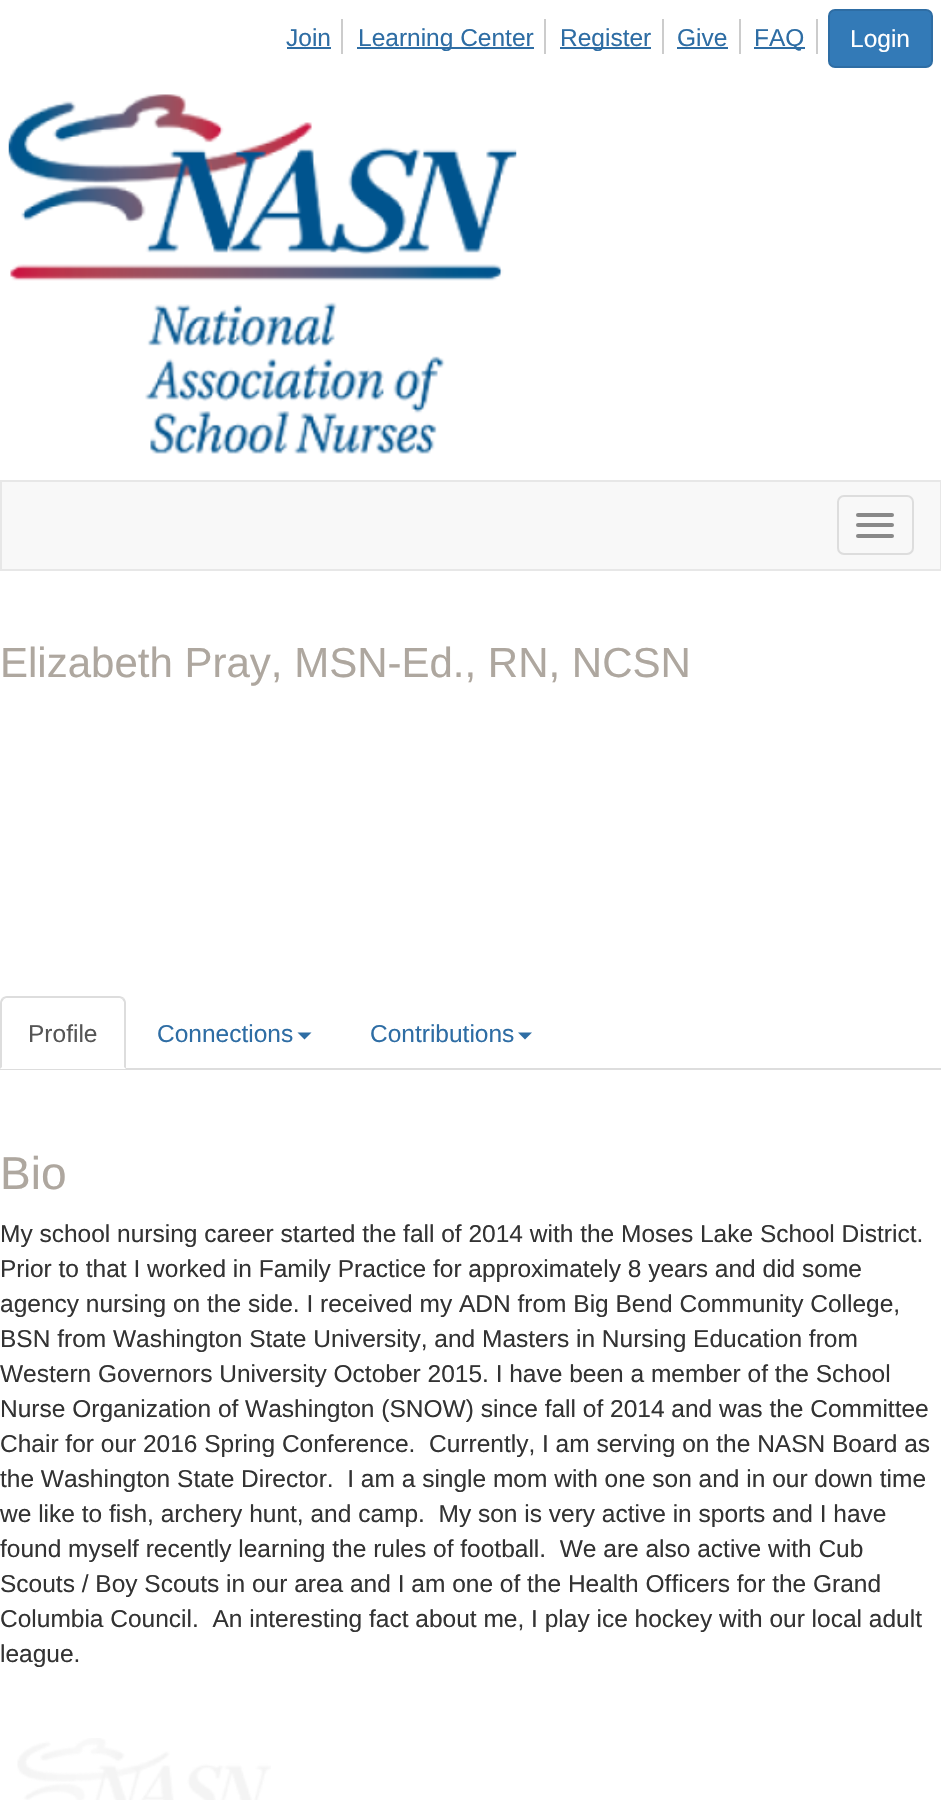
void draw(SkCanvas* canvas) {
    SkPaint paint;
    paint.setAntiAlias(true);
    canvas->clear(0xFFFFFFFF);
    paint.setColor(0xFFCCCCCC);
    canvas->drawRect(SkRect::MakeXYWH(341, 19, 2, 35), paint);
    SkFont font1(fontMgr->matchFamilyStyle("Liberation Sans", SkFontStyle::Normal()), 24.5f);
    font1.setSubpixel(true);
    paint.setColor(0xFF2E6DA4);
    canvas->drawString("Join", 286, 46, font1, paint);
    canvas->drawRect(SkRect::MakeXYWH(287, 47, 44, 2), paint);
    paint.setColor(0xFFCCCCCC);
    canvas->drawRect(SkRect::MakeXYWH(544, 19, 2, 35), paint);
    paint.setColor(0xFF2E6DA4);
    canvas->drawRect(SkRect::MakeXYWH(357, 47, 177, 2), paint);
    canvas->drawString("Learning Center", 358, 46, font1, paint);
    paint.setColor(0xFFCCCCCC);
    canvas->drawRect(SkRect::MakeXYWH(662, 19, 2, 35), paint);
    paint.setColor(0xFF2E6DA4);
    canvas->drawRect(SkRect::MakeXYWH(560, 47, 91, 2), paint);
    canvas->drawString("Register", 560, 46, font1, paint);
    paint.setColor(0xFFCCCCCC);
    canvas->drawRect(SkRect::MakeXYWH(739, 19, 2, 35), paint);
    paint.setColor(0xFF2E6DA4);
    canvas->drawString("Give", 677, 46, font1, paint);
    canvas->drawRect(SkRect::MakeXYWH(677, 47, 51, 2), paint);
    paint.setColor(0xFFCCCCCC);
    canvas->drawRect(SkRect::MakeXYWH(816, 19, 2, 35), paint);
    paint.setColor(0xFF2E6DA4);
    canvas->drawRect(SkRect::MakeXYWH(754, 47, 51, 2), paint);
    canvas->drawString("FAQ", 754, 46, font1, paint);
    paint.setColor(0xFF337AB7);
    canvas->drawRoundRect(SkRect::MakeXYWH(829, 10, 103, 57), 6, 6, paint);
    paint.setStyle(SkPaint::kStroke_Style);
    paint.setStrokeWidth(2);
    paint.setColor(0xFF2E6DA4);
    canvas->drawRoundRect(SkRect::MakeXYWH(829, 10, 103, 57), 6, 6, paint);
    paint.setStyle(SkPaint::kFill_Style);
    paint.setColor(0xFFFFFFFF);
    canvas->drawString("Login", 850, 47, font1, paint);
    canvas->drawImageRect(SkImages::DeferredFromEncodedData(SkData::MakeFromFileName("img1.png")), SkRect::MakeXYWH(8, 94, 509, 360), SkSamplingOptions());
    paint.setColor(0xFFF8F8F8);
    canvas->drawRect(SkRect::MakeXYWH(1, 481, 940, 89), paint);
    paint.setStyle(SkPaint::kStroke_Style);
    paint.setColor(0xFFE7E7E7);
    canvas->drawRect(SkRect::MakeXYWH(1, 481, 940, 89), paint);
    paint.setColor(0xFFDDDDDD);
    canvas->drawRoundRect(SkRect::MakeXYWH(838, 496, 75, 58), 6, 6, paint);
    paint.setStyle(SkPaint::kFill_Style);
    paint.setColor(0xFF888888);
    canvas->drawRoundRect(SkRect::MakeXYWH(856, 513, 38, 4), 2, 2, paint);
    canvas->drawRoundRect(SkRect::MakeXYWH(856, 523, 38, 4), 2, 2, paint);
    canvas->drawRoundRect(SkRect::MakeXYWH(856, 534, 38, 4), 2, 2, paint);
    SkFont font2(fontMgr->matchFamilyStyle("Liberation Sans", SkFontStyle::Normal()), 42);
    font2.setSubpixel(true);
    paint.setColor(0xFFAEA79F);
    canvas->drawString("Elizabeth Pray, MSN-Ed., RN, NCSN", 0, 677, font2, paint);
    paint.setColor(0xFFDDDDDD);
    canvas->drawRect(SkRect::MakeXYWH(0, 1068, 941, 2), paint);
    paint.setColor(0xFFFFFFFF);
    canvas->drawPath(SkPathBuilder().moveTo(7, 996).lineTo(119, 996).cubicTo(123, 996, 126, 999, 126, 1003).lineTo(126, 1069).lineTo(0, 1069).lineTo(0, 1003).cubicTo(0, 999, 3, 996, 7, 996).close().detach(), paint);
    paint.setColor(0xFFDDDDDD);
    canvas->drawPath(SkPathBuilder().moveTo(7, 996).cubicTo(5, 996, 3, 997, 2, 998).lineTo(4, 999).lineTo(6, 998).lineTo(120, 998).lineTo(122, 999).lineTo(124, 998).cubicTo(123, 997, 121, 996, 119, 996).close().detach(), paint);
    canvas->drawPath(SkPathBuilder().moveTo(124, 998).cubicTo(125, 999, 126, 1001, 126, 1003).lineTo(126, 1069).lineTo(124, 1067).lineTo(124, 1002).lineTo(122, 999).close().detach(), paint);
    canvas->drawPath(SkPathBuilder().moveTo(0, 1003).lineTo(0, 1069).lineTo(2, 1067).lineTo(2, 1002).lineTo(4, 999).lineTo(2, 998).cubicTo(1, 999, 0, 1001, 0, 1003).close().detach(), paint);
    paint.setColor(0xFF555555);
    canvas->drawString("Profile", 28, 1042, font1, paint);
    paint.setColor(0xFF2E6DA4);
    canvas->drawString("Connections", 157, 1042, font1, paint);
    canvas->drawPath(SkPathBuilder().moveTo(297.5f, 1032.5f).lineTo(311.5f, 1032.5f).lineTo(304.5f, 1039.5f).close().detach(), paint);
    canvas->drawString("Contributions", 370, 1042, font1, paint);
    canvas->drawPath(SkPathBuilder().moveTo(518, 1032.5f).lineTo(532, 1032.5f).lineTo(525, 1039.5f).close().detach(), paint);
    SkFont font3(fontMgr->matchFamilyStyle("Liberation Sans", SkFontStyle::Normal()), 46);
    font3.setSubpixel(true);
    paint.setColor(0xFFAEA79F);
    canvas->drawString("Bio", 0, 1189, font3, paint);
    paint.setColor(0xFF333333);
    canvas->drawString("My school nursing career started the fall of 2014 with the Moses Lake School District.", 0, 1242, font1, paint);
    canvas->drawString("Prior to that I worked in Family Practice for approximately 8 years and did some", 0, 1277, font1, paint);
    canvas->drawString("agency nursing on the side. I received my ADN from Big Bend Community College,", 0, 1312, font1, paint);
    canvas->drawString("BSN from Washington State University, and Masters in Nursing Education from", 0, 1347, font1, paint);
    canvas->drawString("Western Governors University October 2015. I have been a member of the School", 0, 1382, font1, paint);
    canvas->drawString("Nurse Organization of Washington (SNOW) since fall of 2014 and was the Committee", 0, 1417, font1, paint);
    canvas->drawString("Chair for our 2016 Spring Conference.  Currently, I am serving on the NASN Board as", 0, 1452, font1, paint);
    canvas->drawString("the Washington State Director.  I am a single mom with one son and in our down time", 0, 1487, font1, paint);
    canvas->drawString("we like to fish, archery hunt, and camp.  My son is very active in sports and I have", 0, 1522, font1, paint);
    canvas->drawString("found myself recently learning the rules of football.  We are also active with Cub", 0, 1557, font1, paint);
    canvas->drawString("Scouts / Boy Scouts in our area and I am one of the Health Officers for the Grand", 0, 1592, font1, paint);
    canvas->drawString("Columbia Council.  An interesting fact about me, I play ice hockey with our local adult", 0, 1627, font1, paint);
    canvas->drawString("league.", 0, 1662, font1, paint);
    canvas->drawImageRect(SkImages::DeferredFromEncodedData(SkData::MakeFromFileName("img2.png")), SkRect::MakeXYWH(17, 1738, 254, 62), SkSamplingOptions());
}
